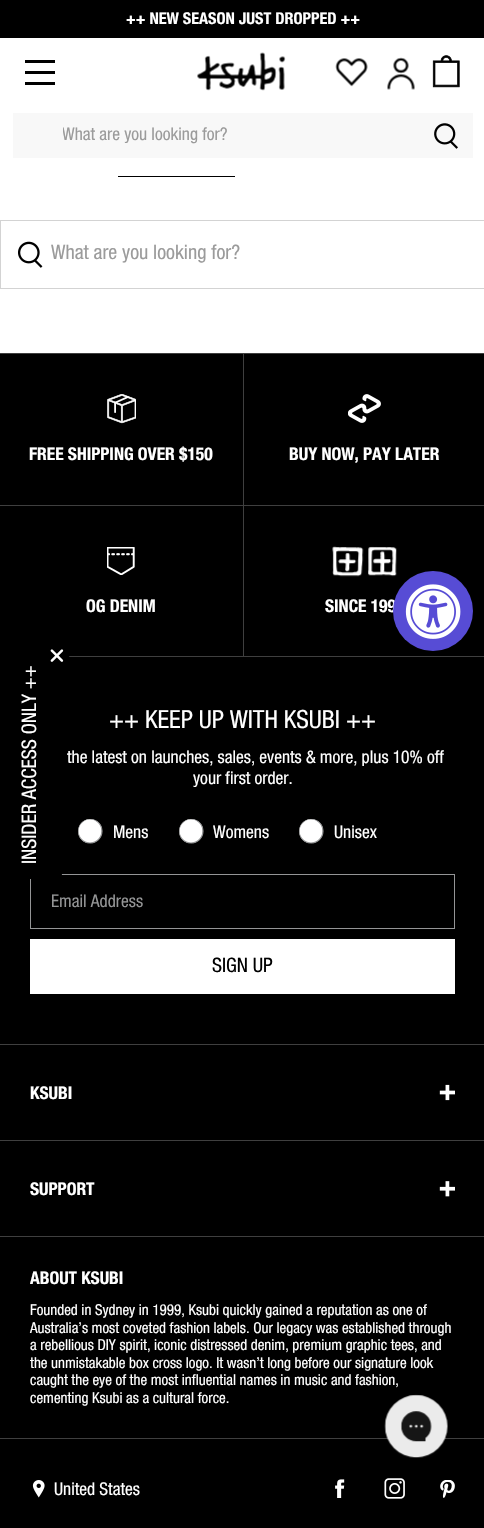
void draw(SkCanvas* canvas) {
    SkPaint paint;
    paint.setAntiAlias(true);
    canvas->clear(0xFFFFFFFF);
    paint.setColor(0xFF000000);
    canvas->drawRect(SkRect::MakeXYWH(0, 0, 484, 38), paint);
    SkFont font1(fontMgr->matchFamilyStyle("Helvetica Neue", SkFontStyle::Bold()), 16.25f);
    font1.setSubpixel(true);
    paint.setColor(0xFFFFFFFF);
    canvas->drawString("++ NEW SEASON JUST DROPPED ++", 126, 24, font1, paint);
    canvas->drawImageRect(SkImages::DeferredFromEncodedData(SkData::MakeFromFileName("img1.png")), SkRect::MakeXYWH(25, 60, 30, 25), SkSamplingOptions());
    canvas->drawImageRect(SkImages::DeferredFromEncodedData(SkData::MakeFromFileName("img2.png")), SkRect::MakeXYWH(197, 52, 89, 39), SkSamplingOptions());
    canvas->drawImageRect(SkImages::DeferredFromEncodedData(SkData::MakeFromFileName("img3.png")), SkRect::MakeXYWH(335, 58, 33, 29), SkSamplingOptions());
    canvas->drawImageRect(SkImages::DeferredFromEncodedData(SkData::MakeFromFileName("img4.png")), SkRect::MakeXYWH(387, 57, 28, 33), SkSamplingOptions());
    canvas->drawImageRect(SkImages::DeferredFromEncodedData(SkData::MakeFromFileName("img5.png")), SkRect::MakeXYWH(432, 55, 28, 33), SkSamplingOptions());
    paint.setColor(0xFFF8F8F8);
    canvas->drawRect(SkRect::MakeXYWH(13, 113, 460, 45), paint);
    canvas->drawImageRect(SkImages::DeferredFromEncodedData(SkData::MakeFromFileName("img6.png")), SkRect::MakeXYWH(434, 123, 24, 26), SkSamplingOptions());
    canvas->save();
    canvas->clipRect(SkRect::MakeXYWH(63, 125, 397, 20));
    SkFont font2(fontMgr->matchFamilyStyle("Helvetica Neue", SkFontStyle::Normal()), 17.5f);
    font2.setSubpixel(true);
    paint.setColor(0xFF9B9B9B);
    canvas->drawString("What are you looking for?", 62, 140, font2, paint);
    canvas->restore();
    paint.setColor(0xFF000000);
    canvas->drawRect(SkRect::MakeXYWH(118, 176, 117, 1), paint);
    paint.setStyle(SkPaint::kStroke_Style);
    paint.setStrokeWidth(1);
    paint.setColor(0xFFD3D3D3);
    canvas->drawRect(SkRect::MakeXYWH(0.5f, 220.5f, 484, 68), paint);
    canvas->drawImageRect(SkImages::DeferredFromEncodedData(SkData::MakeFromFileName("img7.png")), SkRect::MakeXYWH(18, 241, 25, 27), SkSamplingOptions());
    SkFont font3(fontMgr->matchFamilyStyle("Helvetica Neue", SkFontStyle::Normal()), 20);
    font3.setSubpixel(true);
    paint.setStyle(SkPaint::kFill_Style);
    paint.setColor(0xFF9B9B9B);
    canvas->drawString("What are you looking for?", 51, 259, font3, paint);
    paint.setColor(0xFF000000);
    canvas->drawRect(SkRect::MakeXYWH(0, 354, 243, 151), paint);
    paint.setColor(0xFF3F3F3F);
    canvas->drawRect(SkRect::MakeXYWH(0, 353, 484, 1), paint);
    canvas->drawImageRect(SkImages::DeferredFromEncodedData(SkData::MakeFromFileName("img8.png")), SkRect::MakeXYWH(107, 394, 29, 30), SkSamplingOptions());
    SkFont font4(fontMgr->matchFamilyStyle("Helvetica Neue", SkFontStyle::Bold()), 17.5f);
    font4.setSubpixel(true);
    paint.setColor(0xFFFFFFFF);
    canvas->drawString("FREE SHIPPING OVER $150", 29, 460, font4, paint);
    paint.setColor(0xFF000000);
    canvas->drawRect(SkRect::MakeXYWH(244, 354, 240, 151), paint);
    paint.setColor(0xFF3F3F3F);
    canvas->drawRect(SkRect::MakeXYWH(243, 353, 1, 152), paint);
    canvas->drawImageRect(SkImages::DeferredFromEncodedData(SkData::MakeFromFileName("img9.png")), SkRect::MakeXYWH(348, 394, 33, 29), SkSamplingOptions());
    paint.setColor(0xFFFFFFFF);
    canvas->drawString("BUY NOW, PAY LATER", 289, 460, font4, paint);
    paint.setColor(0xFF000000);
    canvas->drawRect(SkRect::MakeXYWH(0, 506, 243, 150), paint);
    paint.setColor(0xFF3F3F3F);
    canvas->drawRect(SkRect::MakeXYWH(0, 505, 484, 1), paint);
    canvas->drawImageRect(SkImages::DeferredFromEncodedData(SkData::MakeFromFileName("img10.png")), SkRect::MakeXYWH(107, 547, 28, 28), SkSamplingOptions());
    paint.setColor(0xFFFFFFFF);
    canvas->drawString("OG DENIM", 86, 612, font4, paint);
    paint.setColor(0xFF000000);
    canvas->drawRect(SkRect::MakeXYWH(244, 506, 240, 150), paint);
    paint.setColor(0xFF3F3F3F);
    canvas->drawRect(SkRect::MakeXYWH(243, 505, 1, 151), paint);
    canvas->drawImageRect(SkImages::DeferredFromEncodedData(SkData::MakeFromFileName("img11.png")), SkRect::MakeXYWH(332, 546, 65, 31), SkSamplingOptions());
    paint.setColor(0xFFFFFFFF);
    canvas->drawString("SINCE 199", 325, 612, font4, paint);
    paint.setColor(0xFF574CD5);
    canvas->drawCircle(433, 611, 40, paint);
    canvas->drawImageRect(SkImages::DeferredFromEncodedData(SkData::MakeFromFileName("img12.png")), SkRect::MakeXYWH(405, 584, 56, 55), SkSamplingOptions());
    paint.setColor(0xFF000000);
    canvas->drawRect(SkRect::MakeXYWH(0, 657, 484, 781), paint);
    paint.setStyle(SkPaint::kStroke_Style);
    paint.setColor(0xFF949596);
    canvas->drawRect(SkRect::MakeXYWH(30.5f, 874.5f, 424, 54), paint);
    paint.setStyle(SkPaint::kFill_Style);
    paint.setColor(0xFF000000);
    canvas->drawPath(SkPathBuilder().moveTo(0, 879).lineTo(0, 649).lineTo(58, 649).cubicTo(60, 649, 62, 652, 62, 654).lineTo(62, 874).cubicTo(62, 877, 60, 879, 58, 879).close().detach(), paint);
    paint.setColor(0xFF3F3F3F);
    canvas->drawRect(SkRect::MakeXYWH(68, 656, 416, 1), paint);
    canvas->drawImageRect(SkImages::DeferredFromEncodedData(SkData::MakeFromFileName("img13.png")), SkRect::MakeXYWH(50, 649, 20, 13), SkSamplingOptions());
    paint.setColor(0xFFFFFFFF);
    canvas->save();
    canvas->rotate(-90, 36, 864);
    canvas->drawString("INSIDER ACCESS ONLY ++", 36, 864, font3, paint);
    canvas->restore();
    paint.setColor(0xFF3F3F3F);
    canvas->drawRect(SkRect::MakeXYWH(0, 1438, 484, 1), paint);
    canvas->drawRect(SkRect::MakeXYWH(0, 1044, 484, 1), paint);
    SkFont font5(fontMgr->matchFamilyStyle("Helvetica Neue", SkFontStyle::Normal()), 25);
    font5.setSubpixel(true);
    paint.setColor(0xFFFFFFFF);
    canvas->drawString("++ KEEP UP WITH KSUBI ++", 109, 728, font5, paint);
    canvas->drawString("the latest on launches, sales, events & more, plus 10% off", 67, 763, font2, paint);
    canvas->drawString("your first order.", 193, 784, font2, paint);
    canvas->drawPath(SkPathBuilder().moveTo(90, 819).cubicTo(106, 819.5f, 105.5f, 843, 90, 843).cubicTo(74, 843, 74.5f, 819.5f, 90, 819).close().detach(), paint);
    canvas->save();
    canvas->clipPath(SkPathBuilder().moveTo(90.5f, 819).cubicTo(97.5f, 819, 103, 824.5f, 103, 831.5f).cubicTo(103, 838.5f, 97.5f, 844, 90.5f, 844).cubicTo(83.5f, 844, 78, 838.5f, 78, 831.5f).cubicTo(78, 824.5f, 83.5f, 819, 90.5f, 819).close().detach(), true);
    paint.setStyle(SkPaint::kStroke_Style);
    paint.setStrokeWidth(1.2f);
    paint.setColor(0xFF949596);
    canvas->drawCircle(90, 831, 12, paint);
    canvas->restore();
    paint.setStyle(SkPaint::kFill_Style);
    paint.setColor(0xFFFFFFFF);
    canvas->drawString("Mens", 113, 838, font2, paint);
    canvas->drawPath(SkPathBuilder().moveTo(191, 819).cubicTo(207, 819.5f, 206.5f, 843, 191, 843).cubicTo(175, 843, 175.5f, 819.5f, 191, 819).close().detach(), paint);
    canvas->save();
    canvas->clipPath(SkPathBuilder().moveTo(191.5f, 819).cubicTo(198.5f, 819, 204, 824.5f, 204, 831.5f).cubicTo(204, 838.5f, 198.5f, 844, 191.5f, 844).cubicTo(184.5f, 844, 179, 838.5f, 179, 831.5f).cubicTo(179, 824.5f, 184.5f, 819, 191.5f, 819).close().detach(), true);
    paint.setStyle(SkPaint::kStroke_Style);
    paint.setColor(0xFF949596);
    canvas->drawCircle(191, 831, 12, paint);
    canvas->restore();
    paint.setStyle(SkPaint::kFill_Style);
    paint.setColor(0xFFFFFFFF);
    canvas->drawString("Womens", 213, 838, font2, paint);
    canvas->drawPath(SkPathBuilder().moveTo(311, 819).cubicTo(327, 819.5f, 326.5f, 843, 311, 843).cubicTo(295, 843, 295.5f, 819.5f, 311, 819).close().detach(), paint);
    canvas->save();
    canvas->clipPath(SkPathBuilder().moveTo(311.5f, 819).cubicTo(318.5f, 819, 324, 824.5f, 324, 831.5f).cubicTo(324, 838.5f, 318.5f, 844, 311.5f, 844).cubicTo(304.5f, 844, 299, 838.5f, 299, 831.5f).cubicTo(299, 824.5f, 304.5f, 819, 311.5f, 819).close().detach(), true);
    paint.setStyle(SkPaint::kStroke_Style);
    paint.setColor(0xFF949596);
    canvas->drawCircle(311, 831, 12, paint);
    canvas->restore();
    paint.setStyle(SkPaint::kFill_Style);
    paint.setColor(0xFFFFFFFF);
    canvas->drawString("Unisex", 334, 838, font2, paint);
    paint.setColor(0xFF949596);
    canvas->drawString("Email Address", 51, 907, font2, paint);
    paint.setColor(0xFFFFFFFF);
    canvas->drawRect(SkRect::MakeXYWH(30, 939, 425, 55), paint);
    paint.setColor(0xFF000000);
    canvas->drawString("SIGN UP", 212, 972, font3, paint);
    paint.setColor(0xFF3F3F3F);
    canvas->drawRect(SkRect::MakeXYWH(0, 1140, 484, 1), paint);
    paint.setColor(0xFFFFFFFF);
    canvas->drawString("KSUBI", 30, 1099, font4, paint);
    canvas->drawImageRect(SkImages::DeferredFromEncodedData(SkData::MakeFromFileName("img14.png")), SkRect::MakeXYWH(439, 1084, 16, 17), SkSamplingOptions());
    paint.setColor(0xFF3F3F3F);
    canvas->drawRect(SkRect::MakeXYWH(0, 1236, 484, 1), paint);
    paint.setColor(0xFFFFFFFF);
    canvas->drawString("SUPPORT", 30, 1195, font4, paint);
    canvas->drawImageRect(SkImages::DeferredFromEncodedData(SkData::MakeFromFileName("img15.png")), SkRect::MakeXYWH(439, 1181, 16, 16), SkSamplingOptions());
    canvas->drawString("ABOUT KSUBI", 30, 1284, font4, paint);
    SkFont font6(fontMgr->matchFamilyStyle("Helvetica Neue", SkFontStyle::Normal()), 15);
    font6.setSubpixel(true);
    canvas->drawString("Founded in Sydney in 1999, Ksubi quickly gained a reputation as one of", 30, 1315, font6, paint);
    canvas->drawString("Australia’s most coveted fashion labels. Our legacy was established through", 30, 1333, font6, paint);
    canvas->drawString("a rebellious DIY spirit, iconic distressed denim, premium graphic tees, and", 30, 1350, font6, paint);
    canvas->drawString("the unmistakable box cross logo. It wasn’t long before our signature look", 30, 1368, font6, paint);
    canvas->drawString("caught the eye of the most influential names in music and fashion,", 30, 1385, font6, paint);
    canvas->drawString("cementing Ksubi as a cultural force.", 30, 1403, font6, paint);
    paint.setColor(0xFF000000);
    canvas->drawRect(SkRect::MakeXYWH(0, 1439, 484, 89), paint);
    canvas->drawImageRect(SkImages::DeferredFromEncodedData(SkData::MakeFromFileName("img16.png")), SkRect::MakeXYWH(32, 1480, 13, 18), SkSamplingOptions());
    paint.setColor(0xFFFFFFFF);
    canvas->drawString("United States", 54, 1495, font2, paint);
    canvas->drawImageRect(SkImages::DeferredFromEncodedData(SkData::MakeFromFileName("img17.png")), SkRect::MakeXYWH(335, 1479, 10, 19), SkSamplingOptions());
    canvas->drawImageRect(SkImages::DeferredFromEncodedData(SkData::MakeFromFileName("img18.png")), SkRect::MakeXYWH(384, 1478, 21, 21), SkSamplingOptions());
    canvas->drawImageRect(SkImages::DeferredFromEncodedData(SkData::MakeFromFileName("img19.png")), SkRect::MakeXYWH(440, 1480, 15, 18), SkSamplingOptions());
    canvas->drawImageRect(SkImages::DeferredFromEncodedData(SkData::MakeFromFileName("img20.png")), SkRect::MakeXYWH(384, 1394, 64, 64), SkSamplingOptions());
}
